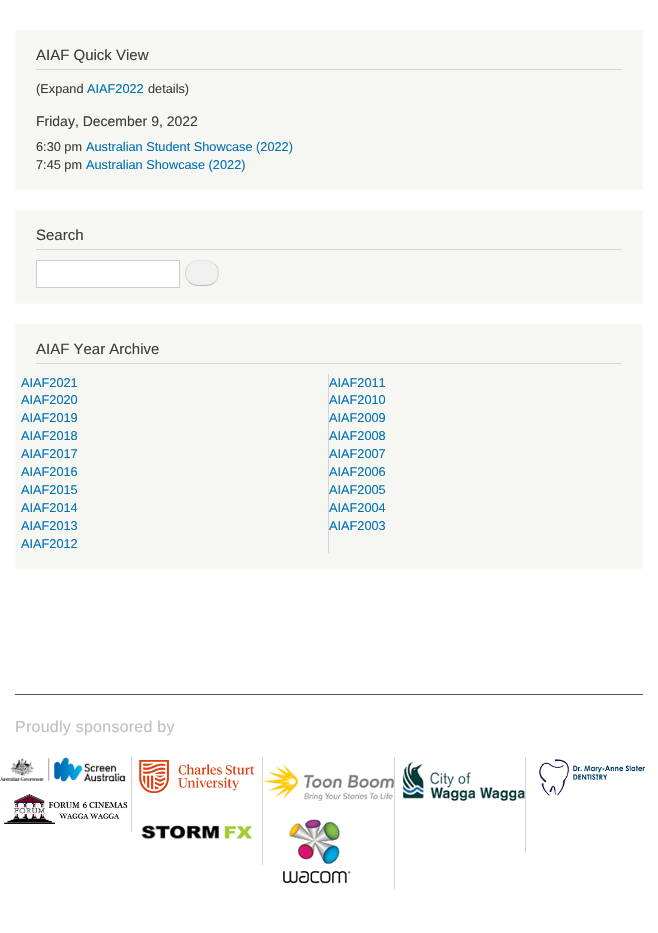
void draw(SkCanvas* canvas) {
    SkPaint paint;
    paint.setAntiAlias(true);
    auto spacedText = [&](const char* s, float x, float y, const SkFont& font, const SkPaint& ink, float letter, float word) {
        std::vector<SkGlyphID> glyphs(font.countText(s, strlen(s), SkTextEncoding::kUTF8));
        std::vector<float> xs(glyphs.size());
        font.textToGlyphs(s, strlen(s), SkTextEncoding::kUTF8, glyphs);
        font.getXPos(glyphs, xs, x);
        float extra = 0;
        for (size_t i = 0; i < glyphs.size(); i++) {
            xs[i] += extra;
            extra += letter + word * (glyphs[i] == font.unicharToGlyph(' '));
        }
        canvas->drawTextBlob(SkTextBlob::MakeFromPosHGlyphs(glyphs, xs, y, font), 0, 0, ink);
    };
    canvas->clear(0xFFFFFFFF);
    paint.setColor(0xFFF6F6F2);
    canvas->drawRect(SkRect::MakeXYWH(15.5f, 30.5f, 627, 159), paint);
    paint.setStyle(SkPaint::kStroke_Style);
    paint.setStrokeWidth(1);
    paint.setColor(0xFFF9F9F9);
    canvas->drawRect(SkRect::MakeXYWH(15.5f, 30.5f, 627, 159), paint);
    paint.setStyle(SkPaint::kFill_Style);
    paint.setColor(0xFFD6D6D6);
    canvas->drawRect(SkRect::MakeXYWH(36, 69, 586, 1), paint);
    SkFont font1(fontMgr->matchFamilyStyle("Liberation Sans", SkFontStyle::Normal()), 15);
    font1.setSubpixel(true);
    paint.setColor(0xFF3B3B3B);
    canvas->drawString("AIAF Quick View", 36, 60, font1, paint);
    SkFont font2(fontMgr->matchFamilyStyle("Liberation Sans", SkFontStyle::Normal()), 12.75f);
    font2.setSubpixel(true);
    canvas->drawString("(Expand", 36, 93, font2, paint);
    paint.setColor(0xFF0071B3);
    canvas->drawString("AIAF2022", 87, 93, font2, paint);
    paint.setColor(0xFF3B3B3B);
    canvas->drawString("details)", 148, 93, font2, paint);
    SkFont font3(fontMgr->matchFamilyStyle("Liberation Sans", SkFontStyle::Normal()), 14);
    font3.setSubpixel(true);
    canvas->drawString("Friday, December 9, 2022", 36, 126, font3, paint);
    canvas->drawString("6:30 pm", 36, 151, font2, paint);
    paint.setColor(0xFF0071B3);
    canvas->drawString("Australian Student Showcase (2022)", 86, 151, font2, paint);
    paint.setColor(0xFF3B3B3B);
    canvas->drawString("7:45 pm", 36, 169, font2, paint);
    paint.setColor(0xFF0071B3);
    canvas->drawString("Australian Showcase (2022)", 86, 169, font2, paint);
    paint.setColor(0xFFF6F6F2);
    canvas->drawRect(SkRect::MakeXYWH(15.5f, 210.5f, 627, 93), paint);
    paint.setStyle(SkPaint::kStroke_Style);
    paint.setColor(0xFFF9F9F9);
    canvas->drawRect(SkRect::MakeXYWH(15.5f, 210.5f, 627, 93), paint);
    paint.setStyle(SkPaint::kFill_Style);
    paint.setColor(0xFFD6D6D6);
    canvas->drawRect(SkRect::MakeXYWH(36, 249, 586, 1), paint);
    paint.setColor(0xFF3B3B3B);
    canvas->drawString("Search", 36, 240, font1, paint);
    paint.setColor(0xFFFFFFFF);
    canvas->drawRect(SkRect::MakeXYWH(36.5f, 260.5f, 143, 27), paint);
    paint.setStyle(SkPaint::kStroke_Style);
    paint.setColor(0xFFCCCCCC);
    canvas->drawRect(SkRect::MakeXYWH(36.5f, 260.5f, 143, 27), paint);
    paint.setStyle(SkPaint::kFill_Style);
    paint.setColor(0xFFF0F0F0);
    canvas->drawRoundRect(SkRect::MakeXYWH(185, 260, 34, 26), 13, 13, paint);
    paint.setStyle(SkPaint::kStroke_Style);
    paint.setColor(0xFFE4E4E4);
    canvas->drawPath(SkPathBuilder().moveTo(189, 264).cubicTo(193, 260.5f, 197, 260.5f, 202, 260.5f).cubicTo(207, 260.5f, 211, 260.5f, 215, 264).detach(), paint);
    paint.setColor(0xFFD2D2D2);
    canvas->drawPath(SkPathBuilder().moveTo(215, 264).cubicTo(219.5f, 269, 219.5f, 277, 215, 282).detach(), paint);
    paint.setColor(0xFFB4B4B4);
    canvas->drawPath(SkPathBuilder().moveTo(215, 282).cubicTo(211, 285.5f, 207, 285.5f, 202, 285.5f).cubicTo(197, 285.5f, 193, 285.5f, 189, 282).detach(), paint);
    paint.setColor(0xFFD2D2D2);
    canvas->drawPath(SkPathBuilder().moveTo(189, 282).cubicTo(184.5f, 277, 184.5f, 269, 189, 264).detach(), paint);
    paint.setStyle(SkPaint::kFill_Style);
    paint.setColor(0xFFF6F6F2);
    canvas->drawRect(SkRect::MakeXYWH(15.5f, 324.5f, 627, 244), paint);
    paint.setStyle(SkPaint::kStroke_Style);
    paint.setColor(0xFFF9F9F9);
    canvas->drawRect(SkRect::MakeXYWH(15.5f, 324.5f, 627, 244), paint);
    paint.setStyle(SkPaint::kFill_Style);
    paint.setColor(0xFFD6D6D6);
    canvas->drawRect(SkRect::MakeXYWH(36, 363, 586, 1), paint);
    paint.setColor(0xFF3B3B3B);
    canvas->drawString("AIAF Year Archive", 36, 354, font1, paint);
    paint.setColor(0xFFD3D7D9);
    canvas->drawRect(SkRect::MakeXYWH(328, 374, 1, 179), paint);
    paint.setColor(0xFF0071B3);
    canvas->drawString("AIAF2021", 21, 387, font2, paint);
    canvas->drawString("AIAF2020", 21, 404, font2, paint);
    canvas->drawString("AIAF2019", 21, 422, font2, paint);
    canvas->drawString("AIAF2018", 21, 440, font2, paint);
    canvas->drawString("AIAF2017", 21, 458, font2, paint);
    canvas->drawString("AIAF2016", 21, 476, font2, paint);
    canvas->drawString("AIAF2015", 21, 494, font2, paint);
    canvas->drawString("AIAF2014", 21, 512, font2, paint);
    canvas->drawString("AIAF2013", 21, 530, font2, paint);
    canvas->drawString("AIAF2012", 21, 548, font2, paint);
    canvas->drawString("AIAF2011", 329, 387, font2, paint);
    canvas->drawString("AIAF2010", 329, 404, font2, paint);
    canvas->drawString("AIAF2009", 329, 422, font2, paint);
    canvas->drawString("AIAF2008", 329, 440, font2, paint);
    canvas->drawString("AIAF2007", 329, 458, font2, paint);
    canvas->drawString("AIAF2006", 329, 476, font2, paint);
    canvas->drawString("AIAF2005", 329, 494, font2, paint);
    canvas->drawString("AIAF2004", 329, 512, font2, paint);
    canvas->drawString("AIAF2003", 329, 530, font2, paint);
    paint.setColor(0xFF555555);
    canvas->drawRect(SkRect::MakeXYWH(15, 694, 628, 1), paint);
    SkFont font4(fontMgr->matchFamilyStyle("Liberation Sans", SkFontStyle::Normal()), 16);
    font4.setSubpixel(true);
    paint.setColor(0xFFC0C0C0);
    spacedText("Proudly sponsored by", 15, 732, font4, paint, 0.25f, 0);
    paint.setColor(0xFFD3D7D9);
    canvas->drawRect(SkRect::MakeXYWH(131, 757, 1, 75), paint);
    canvas->drawImageRect(SkImages::DeferredFromEncodedData(SkData::MakeFromFileName("img1.png")), SkRect::MakeXYWH(0, 757, 126, 25), SkSamplingOptions());
    canvas->drawImageRect(SkImages::DeferredFromEncodedData(SkData::MakeFromFileName("img2.png")), SkRect::MakeXYWH(4, 794, 124, 30), SkSamplingOptions());
    canvas->drawRect(SkRect::MakeXYWH(262, 757, 1, 108), paint);
    canvas->drawImageRect(SkImages::DeferredFromEncodedData(SkData::MakeFromFileName("img3.png")), SkRect::MakeXYWH(139, 760, 116, 33), SkSamplingOptions());
    canvas->drawImageRect(SkImages::DeferredFromEncodedData(SkData::MakeFromFileName("img4.png")), SkRect::MakeXYWH(141, 825, 112, 15), SkSamplingOptions());
    canvas->drawRect(SkRect::MakeXYWH(394, 757, 1, 133), paint);
    canvas->drawImageRect(SkImages::DeferredFromEncodedData(SkData::MakeFromFileName("img5.png")), SkRect::MakeXYWH(263, 764, 131, 37), SkSamplingOptions());
    canvas->drawImageRect(SkImages::DeferredFromEncodedData(SkData::MakeFromFileName("img6.png")), SkRect::MakeXYWH(283, 819, 68, 65), SkSamplingOptions());
    canvas->drawRect(SkRect::MakeXYWH(525, 757, 1, 96), paint);
    canvas->drawImageRect(SkImages::DeferredFromEncodedData(SkData::MakeFromFileName("img7.png")), SkRect::MakeXYWH(402, 761, 123, 40), SkSamplingOptions());
    canvas->drawImageRect(SkImages::DeferredFromEncodedData(SkData::MakeFromFileName("img8.png")), SkRect::MakeXYWH(539, 759, 106, 37), SkSamplingOptions());
}
